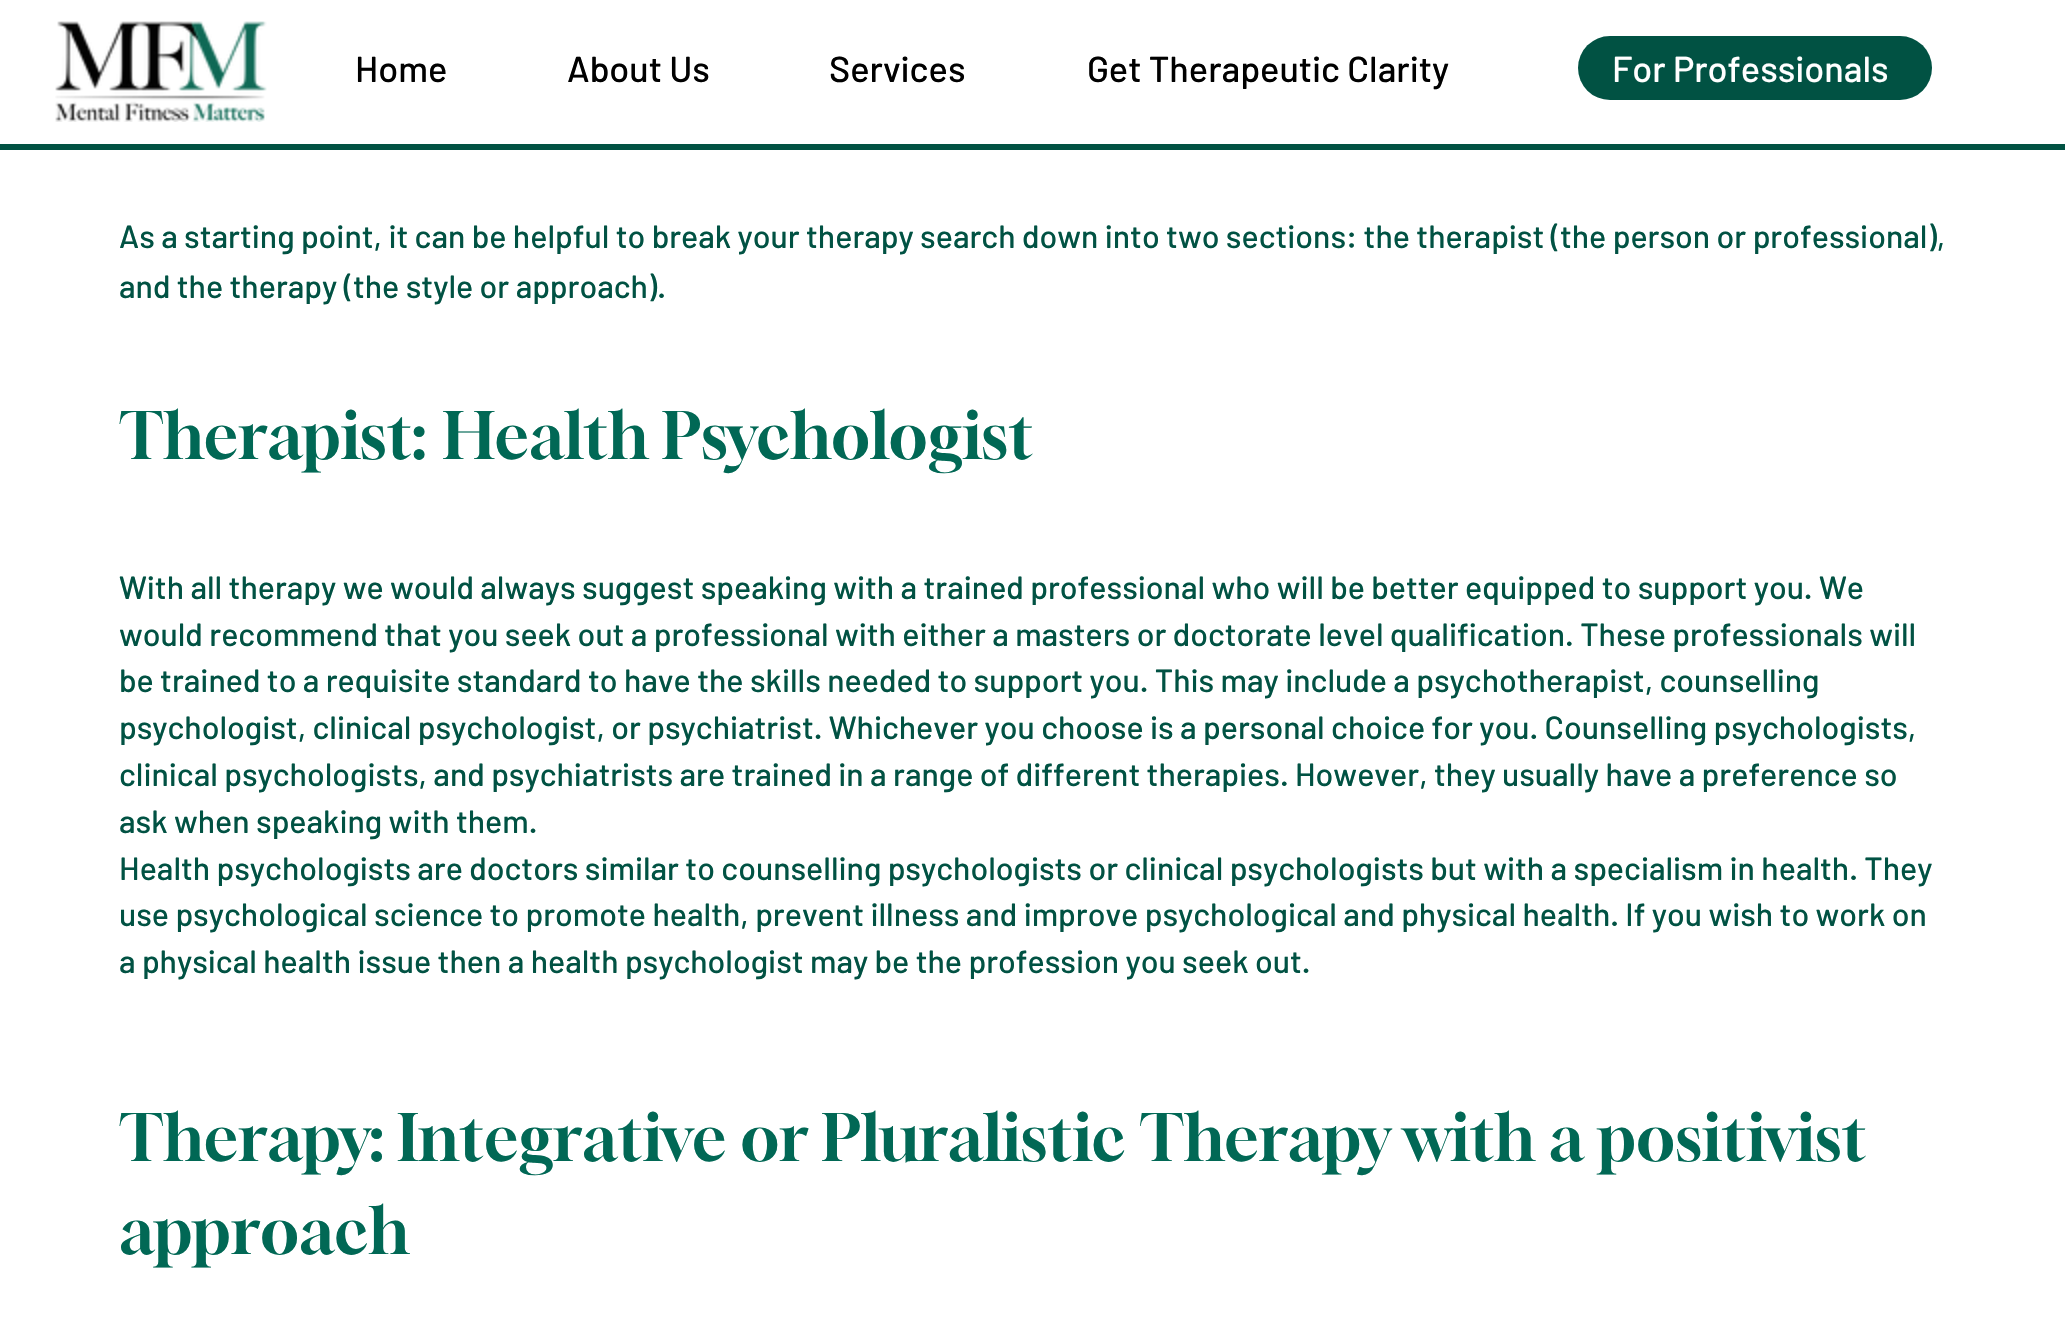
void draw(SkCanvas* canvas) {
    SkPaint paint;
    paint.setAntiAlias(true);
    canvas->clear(0xFFFFFFFF);
    canvas->drawImageRect(SkImages::DeferredFromEncodedData(SkData::MakeFromFileName("img1.png")), SkRect::MakeXYWH(55, 21, 212, 101), SkSamplingOptions());
    SkFont font1(fontMgr->matchFamilyStyle("Barlow", SkFontStyle(500, SkFontStyle::kNormal_Width, SkFontStyle::kUpright_Slant)), 36);
    font1.setSubpixel(true);
    paint.setColor(0xFF000000);
    canvas->drawString("Home", 355, 82, font1, paint);
    canvas->drawString("About Us", 567, 82, font1, paint);
    canvas->drawString("Services", 829, 82, font1, paint);
    canvas->drawString("Get Therapeutic Clarity", 1087, 82, font1, paint);
    paint.setColor(0xFF015243);
    canvas->drawRoundRect(SkRect::MakeXYWH(1578, 36, 354, 64), 32, 32, paint);
    paint.setColor(0xFFFFFFFF);
    canvas->drawString("For Professionals", 1612, 82, font1, paint);
    paint.setColor(0xFF015243);
    canvas->drawRect(SkRect::MakeXYWH(0, 144, 2065, 6), paint);
    SkFont font2(fontMgr->matchFamilyStyle("Barlow", SkFontStyle(500, SkFontStyle::kNormal_Width, SkFontStyle::kUpright_Slant)), 32);
    font2.setSubpixel(true);
    canvas->drawString("As a starting point, it can be helpful to break your therapy search down into two sections: the therapist (the person or professional),", 119, 248, font2, paint);
    canvas->drawString("and the therapy (the style or approach).", 119, 298, font2, paint);
    SkFont font3(fontMgr->matchFamilyStyle("Gloock", SkFontStyle::Normal()), 64);
    font3.setSubpixel(true);
    paint.setColor(0xFF016855);
    canvas->drawString("Therapist:", 119, 459, font3, paint);
    canvas->drawString("Health Psychologist", 443, 459, font3, paint);
    paint.setColor(0xFF015243);
    canvas->drawString("With all therapy we would always suggest speaking with a trained professional who will be better equipped to support you. We", 119, 599, font2, paint);
    canvas->drawString("would recommend that you seek out a professional with either a masters or doctorate level qualification. These professionals will", 119, 646, font2, paint);
    canvas->drawString("be trained to a requisite standard to have the skills needed to support you. This may include a psychotherapist, counselling", 119, 692, font2, paint);
    canvas->drawString("psychologist, clinical psychologist, or psychiatrist. Whichever you choose is a personal choice for you. Counselling psychologists,", 119, 739, font2, paint);
    canvas->drawString("clinical psychologists, and psychiatrists are trained in a range of different therapies. However, they usually have a preference so", 119, 786, font2, paint);
    canvas->drawString("ask when speaking with them.", 119, 833, font2, paint);
    canvas->drawString("Health psychologists are doctors similar to counselling psychologists or clinical psychologists but with a specialism in health. They", 119, 880, font2, paint);
    canvas->drawString("use psychological science to promote health, prevent illness and improve psychological and physical health. If you wish to work on", 119, 926, font2, paint);
    canvas->drawString("a physical health issue then a health psychologist may be the profession you seek out.", 119, 973, font2, paint);
    paint.setColor(0xFF016855);
    canvas->drawString("Therapy: Integrative or Pluralistic Therapy with a positivist", 119, 1161, font3, paint);
    canvas->drawString("approach", 119, 1254, font3, paint);
}
